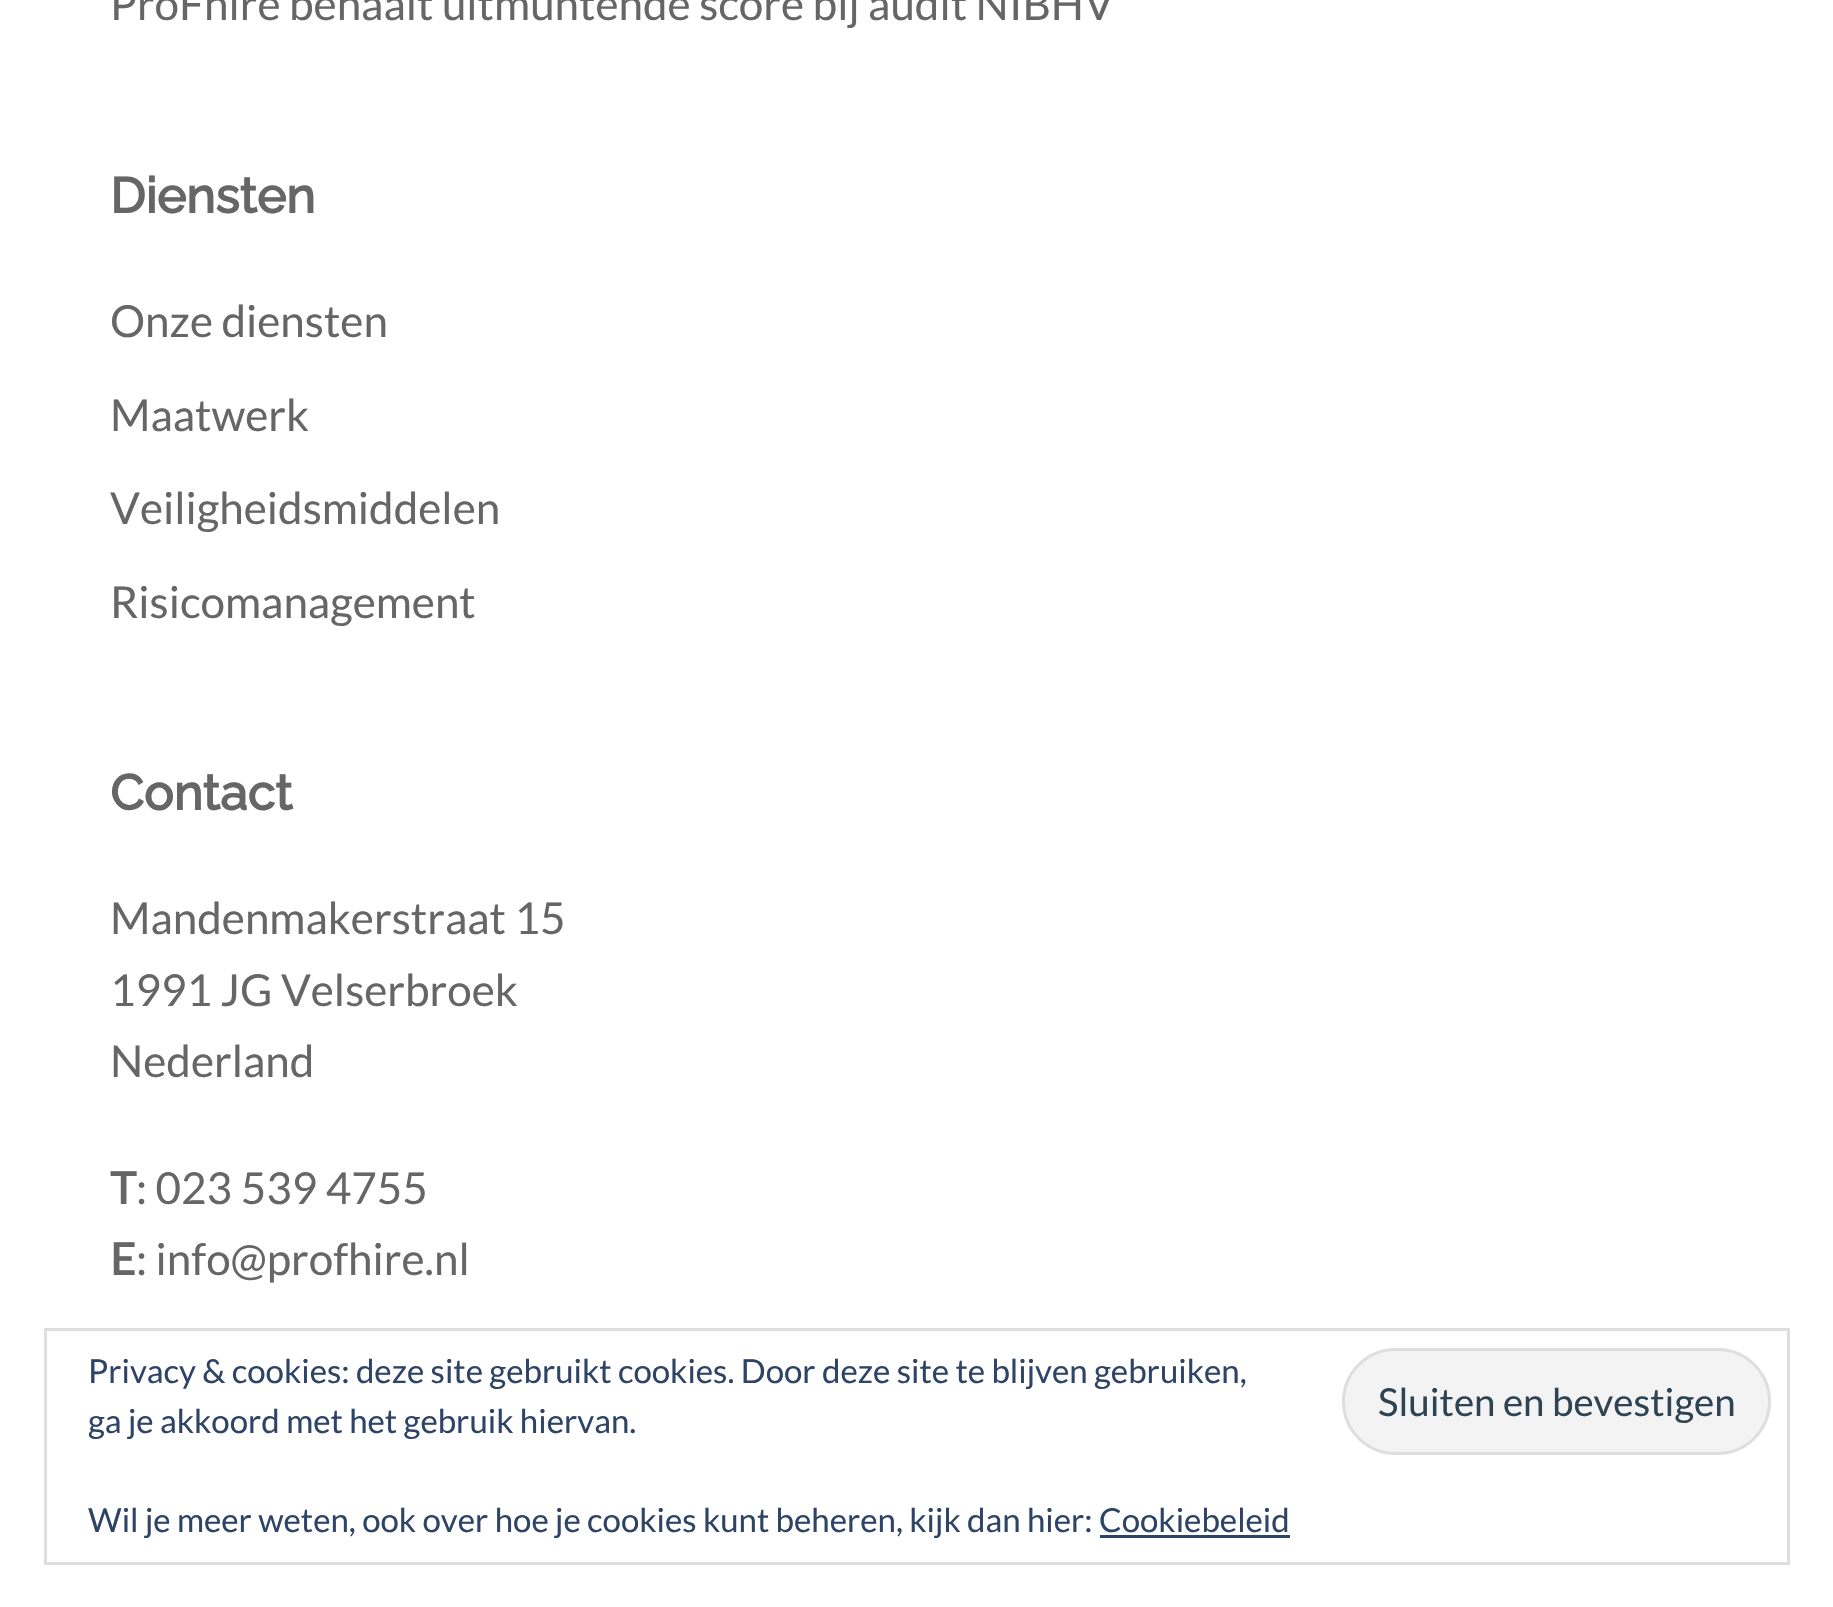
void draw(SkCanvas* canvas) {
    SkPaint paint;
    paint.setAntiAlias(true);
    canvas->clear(0xFFFFFFFF);
    SkFont font1(fontMgr->matchFamilyStyle("Lato", SkFontStyle::Normal()), 44);
    font1.setSubpixel(true);
    paint.setColor(0xFF666666);
    canvas->drawString("ProFhire behaalt uitmuntende score bij audit NIBHV", 110, 20, font1, paint);
    SkFont font2(fontMgr->matchFamilyStyle("Raleway", SkFontStyle::Bold()), 49.5f);
    font2.setSubpixel(true);
    canvas->drawString("Diensten", 110, 213, font2, paint);
    canvas->drawString("Onze diensten", 110, 337, font1, paint);
    canvas->drawString("Maatwerk", 110, 431, font1, paint);
    canvas->drawString("Veiligheidsmiddelen", 110, 524, font1, paint);
    canvas->drawString("Risicomanagement", 110, 618, font1, paint);
    canvas->drawString("Contact", 110, 810, font2, paint);
    canvas->drawString("Mandenmakerstraat 15", 110, 934, font1, paint);
    canvas->drawString("1991 JG Velserbroek", 110, 1006, font1, paint);
    canvas->drawString("Nederland", 110, 1077, font1, paint);
    SkFont font3(fontMgr->matchFamilyStyle("Lato", SkFontStyle::Bold()), 44);
    font3.setSubpixel(true);
    canvas->drawString("T", 110, 1204, font3, paint);
    canvas->drawString(": 023 539 4755", 136, 1204, font1, paint);
    canvas->drawString("E", 110, 1275, font3, paint);
    canvas->drawString(": info@profhire.nl", 136, 1275, font1, paint);
    paint.setStyle(SkPaint::kStroke_Style);
    paint.setStrokeWidth(3);
    paint.setColor(0xFFDEDEDE);
    canvas->drawRect(SkRect::MakeXYWH(45.5f, 1329.5f, 1743, 234), paint);
    SkFont font4(fontMgr->matchFamilyStyle("Lato", SkFontStyle::Normal()), 33);
    font4.setSubpixel(true);
    paint.setStyle(SkPaint::kFill_Style);
    paint.setColor(0xFF2E4467);
    canvas->drawString("Privacy & cookies: deze site gebruikt cookies. Door deze site te blijven gebruiken,", 88, 1383, font4, paint);
    canvas->drawString("ga je akkoord met het gebruik hiervan.", 88, 1433, font4, paint);
    paint.setColor(0xFFF3F3F3);
    canvas->drawRoundRect(SkRect::MakeXYWH(1343.5f, 1349.5f, 426, 104), 52, 52, paint);
    paint.setStyle(SkPaint::kStroke_Style);
    paint.setColor(0xFFDEDEDE);
    canvas->drawRoundRect(SkRect::MakeXYWH(1343.5f, 1349.5f, 426, 104), 52, 52, paint);
    SkFont font5(fontMgr->matchFamilyStyle("Lato", SkFontStyle::Normal()), 38.5f);
    font5.setSubpixel(true);
    paint.setStyle(SkPaint::kFill_Style);
    paint.setColor(0xFF2E4453);
    canvas->drawString("Sluiten en bevestigen", 1378, 1416, font5, paint);
    paint.setColor(0xFF2E4467);
    canvas->drawString("Wil je meer weten, ook over hoe je cookies kunt beheren, kijk dan hier: Cookiebeleid", 88, 1532, font4, paint);
    canvas->drawRect(SkRect::MakeXYWH(1100, 1535, 190, 3), paint);
}
